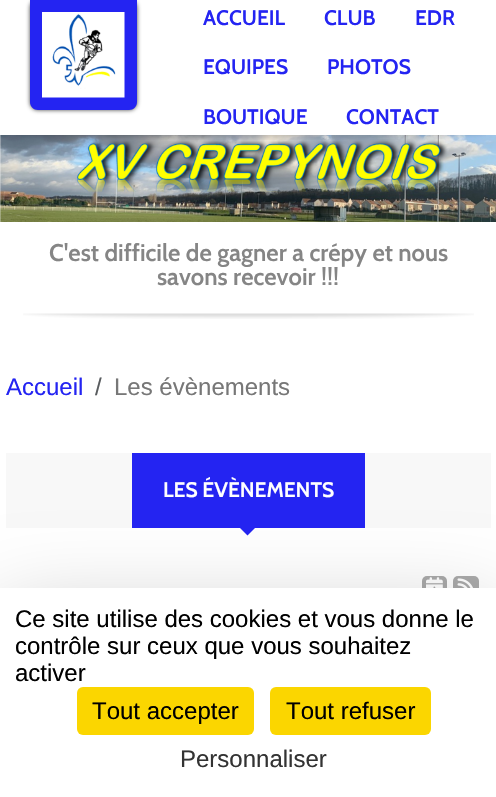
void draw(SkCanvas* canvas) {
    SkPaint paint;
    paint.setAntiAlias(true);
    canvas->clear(0xFFFFFFFF);
    paint.setColor(0xFF444444);
    paint.setMaskFilter(SkMaskFilter::MakeBlur(kNormal_SkBlurStyle, 2));
    canvas->drawRoundRect(SkRect::MakeXYWH(30, 0, 107, 110), 8, 8, paint);
    paint.setMaskFilter(nullptr);
    paint.setColor(0xFF2424F2);
    canvas->drawPath(SkPathBuilder().moveTo(30, 0).lineTo(137, 0).lineTo(137, 102).cubicTo(137, 106.5f, 133.5f, 110, 129, 110).lineTo(38, 110).cubicTo(33.5f, 110, 30, 106.5f, 30, 102).close().detach(), paint);
    canvas->drawImageRect(SkImages::DeferredFromEncodedData(SkData::MakeFromFileName("img1.png")), SkRect::MakeXYWH(42, 12, 83, 86), SkSamplingOptions());
    SkFont font1(fontMgr->matchFamilyStyle("Cabin", SkFontStyle(600, SkFontStyle::kNormal_Width, SkFontStyle::kUpright_Slant)), 21);
    font1.setSubpixel(true);
    canvas->drawString("ACCUEIL", 203, 25, font1, paint);
    canvas->drawString("CLUB", 324, 25, font1, paint);
    canvas->drawString("EDR", 415, 25, font1, paint);
    canvas->drawString("EQUIPES", 203, 74, font1, paint);
    canvas->drawString("PHOTOS", 327, 74, font1, paint);
    canvas->drawString("BOUTIQUE", 203, 124, font1, paint);
    canvas->drawString("CONTACT", 346, 124, font1, paint);
    canvas->drawImageRect(SkImages::DeferredFromEncodedData(SkData::MakeFromFileName("img3.png")), SkRect::MakeXYWH(0, 135, 496, 87), SkSamplingOptions());
    canvas->drawImageRect(SkImages::DeferredFromEncodedData(SkData::MakeFromFileName("img2.png")), SkRect::MakeXYWH(16, 135, 470, 5), SkSamplingOptions());
    SkFont font2(fontMgr->matchFamilyStyle("Cabin", SkFontStyle(600, SkFontStyle::kNormal_Width, SkFontStyle::kUpright_Slant)), 24);
    font2.setSubpixel(true);
    paint.setColor(0xFF858585);
    canvas->drawString("C'est difficile de gagner a crépy et nous", 49, 261, font2, paint);
    canvas->drawString("savons recevoir !!!", 157, 285, font2, paint);
    canvas->drawImageRect(SkImages::DeferredFromEncodedData(SkData::MakeFromFileName("img4.png")), SkRect::MakeXYWH(23, 313, 451, 6), SkSamplingOptions());
    SkFont font3(fontMgr->matchFamilyStyle("Liberation Sans", SkFontStyle::Normal()), 24);
    font3.setSubpixel(true);
    paint.setColor(0xFF2424F2);
    canvas->drawString("Accueil", 6, 395, font3, paint);
    paint.setColor(0xFF595C5F);
    canvas->drawString("/", 95, 395, font3, paint);
    paint.setColor(0xFF777777);
    canvas->drawString("Les évènements", 114, 395, font3, paint);
    paint.setColor(0xFFF8F8F8);
    canvas->drawRect(SkRect::MakeXYWH(6, 453, 485, 75), paint);
    paint.setColor(0xFF2424F2);
    canvas->drawRect(SkRect::MakeXYWH(132, 453, 233, 75), paint);
    paint.setColor(0xFFFFFFFF);
    canvas->drawString("LES ÉVÈNEMENTS", 163, 497, font1, paint);
    paint.setColor(0xFF2424F2);
    canvas->drawPath(SkPathBuilder().moveTo(240, 528).lineTo(255, 528).lineTo(247.5f, 535.5f).close().detach(), paint);
    paint.setColor(0xFFAAAAAA);
    canvas->drawRoundRect(SkRect::MakeXYWH(422, 576, 25, 23), 5, 5, paint);
    canvas->drawImageRect(SkImages::DeferredFromEncodedData(SkData::MakeFromFileName("img5.png")), SkRect::MakeXYWH(426, 577, 17, 11), SkSamplingOptions());
    canvas->drawRoundRect(SkRect::MakeXYWH(453, 576, 26, 23), 5, 5, paint);
    canvas->drawImageRect(SkImages::DeferredFromEncodedData(SkData::MakeFromFileName("img6.png")), SkRect::MakeXYWH(457, 578, 16, 10), SkSamplingOptions());
    paint.setColor(0x40000000);
    paint.setMaskFilter(SkMaskFilter::MakeBlur(kNormal_SkBlurStyle, 45));
    canvas->drawRect(SkRect::MakeXYWH(0, 618, 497, 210), paint);
    paint.setMaskFilter(nullptr);
    paint.setColor(0xFFFFFFFF);
    canvas->drawRect(SkRect::MakeXYWH(0, 588, 496, 209), paint);
    paint.setColor(0xFF000000);
    canvas->drawString("Ce site utilise des cookies et vous donne le", 15, 627, font3, paint);
    canvas->drawString("contrôle sur ceux que vous souhaitez", 15, 654, font3, paint);
    canvas->drawString("activer", 15, 681, font3, paint);
    paint.setColor(0xFFFBD600);
    canvas->drawRoundRect(SkRect::MakeXYWH(77, 687, 177, 48), 6, 6, paint);
    paint.setColor(0xFF000000);
    canvas->drawString("Tout accepter", 92, 719, font3, paint);
    paint.setColor(0xFFFBD600);
    canvas->drawRoundRect(SkRect::MakeXYWH(270, 687, 161, 48), 6, 6, paint);
    paint.setColor(0xFF000000);
    canvas->drawString("Tout refuser", 286, 719, font3, paint);
    paint.setColor(0xFF333333);
    canvas->drawString("Personnaliser", 180, 767, font3, paint);
}
